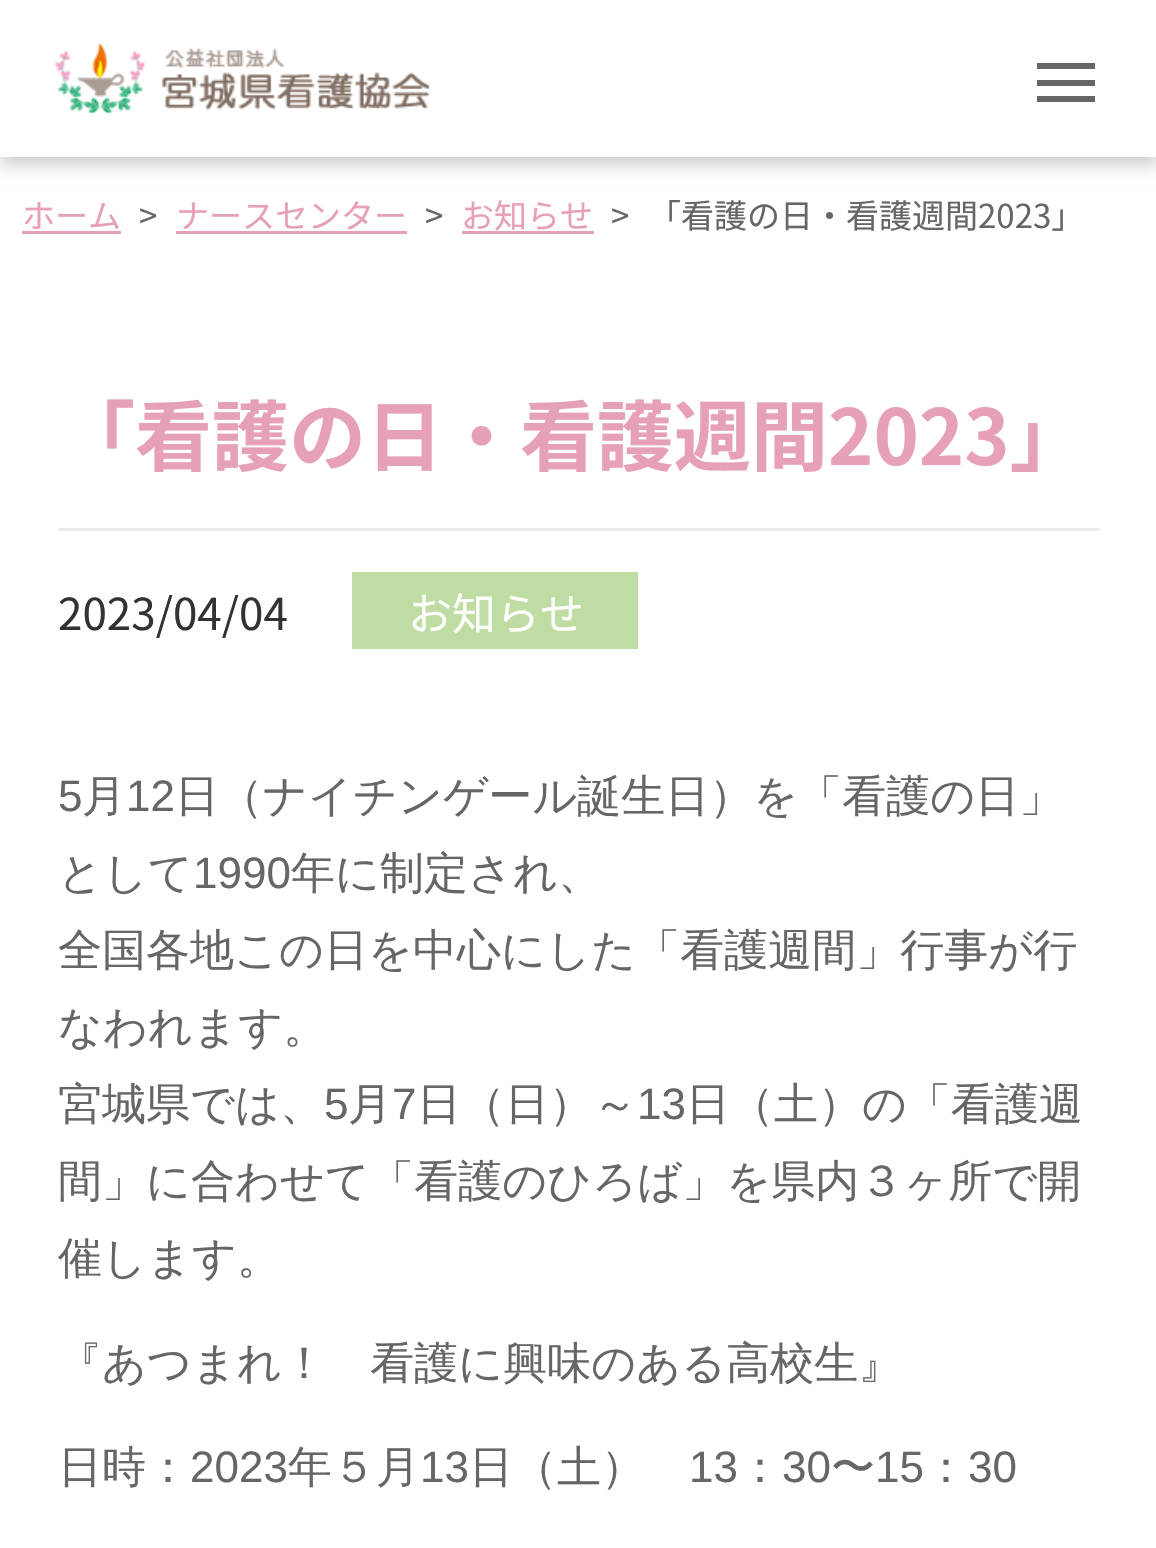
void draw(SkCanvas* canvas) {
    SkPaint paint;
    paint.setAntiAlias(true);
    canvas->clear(0xFFFFFFFF);
    canvas->save();
    canvas->clipPath(SkPathBuilder(SkPathFillType::kEvenOdd).moveTo(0, 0).lineTo(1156, 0).lineTo(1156, 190).lineTo(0, 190).close().moveTo(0, 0).lineTo(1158, 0).lineTo(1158, 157).lineTo(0, 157).close().detach(), true);
    paint.setColor(0x33000000);
    paint.setMaskFilter(SkMaskFilter::MakeBlur(kNormal_SkBlurStyle, 8));
    canvas->drawRect(SkRect::MakeXYWH(0, 8, 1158, 157), paint);
    paint.setMaskFilter(nullptr);
    canvas->restore();
    paint.setColor(0x80FFFFFF);
    canvas->drawRect(SkRect::MakeXYWH(0, 156, 1156, 1), paint);
    canvas->drawImageRect(SkImages::DeferredFromEncodedData(SkData::MakeFromFileName("img1.png")), SkRect::MakeXYWH(55, 44, 374, 69), SkSamplingOptions());
    paint.setColor(0xFF666666);
    canvas->drawRect(SkRect::MakeXYWH(1037, 63, 58, 6), paint);
    canvas->drawRect(SkRect::MakeXYWH(1037, 80, 58, 6), paint);
    canvas->drawRect(SkRect::MakeXYWH(1037, 96, 58, 6), paint);
    SkFont font1(fontMgr->matchFamilyStyle("Noto Sans JP", SkFontStyle::Normal()), 33);
    font1.setSubpixel(true);
    paint.setColor(0xFFE6A0B8);
    canvas->drawString("ホーム", 22, 228, font1, paint);
    canvas->drawRect(SkRect::MakeXYWH(22, 231, 99, 3), paint);
    paint.setColor(0xFF666666);
    canvas->drawString(">", 139, 228, font1, paint);
    paint.setColor(0xFFE6A0B8);
    canvas->drawString("ナースセンター", 176, 228, font1, paint);
    canvas->drawRect(SkRect::MakeXYWH(176, 231, 231, 3), paint);
    paint.setColor(0xFF666666);
    canvas->drawString(">", 425, 228, font1, paint);
    paint.setColor(0xFFE6A0B8);
    canvas->drawString("お知らせ", 461, 228, font1, paint);
    canvas->drawRect(SkRect::MakeXYWH(462, 231, 132, 3), paint);
    paint.setColor(0xFF666666);
    canvas->drawString(">", 611, 228, font1, paint);
    canvas->drawString("「看護の日・看護週間2023」", 648, 228, font1, paint);
    paint.setColor(0xFFEAEAEA);
    canvas->drawRect(SkRect::MakeXYWH(58, 528, 1042, 3), paint);
    SkFont font2(fontMgr->matchFamilyStyle("Noto Sans JP", SkFontStyle::Bold()), 77);
    font2.setSubpixel(true);
    paint.setColor(0xFFE6A0B8);
    canvas->drawString("「看護の日・看護週間2023」", 58, 465, font2, paint);
    SkFont font3(fontMgr->matchFamilyStyle("Noto Sans JP", SkFontStyle::Normal()), 44);
    font3.setSubpixel(true);
    paint.setColor(0xFF333333);
    canvas->drawString("2023/04/04", 58, 630, font3, paint);
    paint.setColor(0xFFBFDDA2);
    canvas->drawRect(SkRect::MakeXYWH(352, 572, 286, 77), paint);
    paint.setColor(0xFFFFFFFF);
    canvas->drawString("お知らせ", 408, 630, font3, paint);
    SkFont font4(fontMgr->matchFamilyStyle("Liberation Sans", SkFontStyle::Normal()), 44);
    font4.setSubpixel(true);
    paint.setColor(0xFF666666);
    canvas->drawString("5", 58, 811, font4, paint);
    SkFont font5(fontMgr->matchFamilyStyle("WenQuanYi Zen Hei", SkFontStyle(500, SkFontStyle::kNormal_Width, SkFontStyle::kUpright_Slant)), 44);
    font5.setSubpixel(true);
    canvas->drawString("月", 82, 811, font5, paint);
    canvas->drawString("12", 126, 811, font4, paint);
    canvas->drawString("日（ナイチンゲール誕生日）を「看護の日」", 175, 811, font5, paint);
    canvas->drawString("として", 58, 888, font5, paint);
    canvas->drawString("1990", 193, 888, font4, paint);
    canvas->drawString("年に制定され、", 291, 888, font5, paint);
    canvas->drawString("全国各地この日を中心にした「看護週間」行事が行", 58, 965, font5, paint);
    canvas->drawString("なわれます。", 58, 1042, font5, paint);
    canvas->drawString("宮城県では、", 58, 1119, font5, paint);
    canvas->drawString("5", 324, 1119, font4, paint);
    canvas->drawString("月", 348, 1119, font5, paint);
    canvas->drawString("7", 392, 1119, font4, paint);
    canvas->drawString("日（日）～", 417, 1119, font5, paint);
    canvas->drawString("13", 637, 1119, font4, paint);
    canvas->drawString("日（土）の「看護週", 686, 1119, font5, paint);
    canvas->drawString("間」に合わせて「看護のひろば」を県内３ヶ所で開", 58, 1196, font5, paint);
    canvas->drawString("催します。", 58, 1273, font5, paint);
    canvas->drawString("『あつまれ！　看護に興味のある高校生』", 58, 1378, font5, paint);
    canvas->drawString("日時：", 58, 1482, font5, paint);
    canvas->drawString("2023", 190, 1482, font4, paint);
    canvas->drawString("年５月", 288, 1482, font5, paint);
    canvas->drawString("13", 420, 1482, font4, paint);
    canvas->drawString("日（土）", 469, 1482, font5, paint);
    canvas->drawString("13", 689, 1482, font4, paint);
    canvas->drawString("：", 738, 1482, font5, paint);
    canvas->drawString("30", 782, 1482, font4, paint);
    canvas->drawString("〜", 831, 1482, font5, paint);
    canvas->drawString("15", 875, 1482, font4, paint);
    canvas->drawString("：", 924, 1482, font5, paint);
    canvas->drawString("30", 968, 1482, font4, paint);
}
